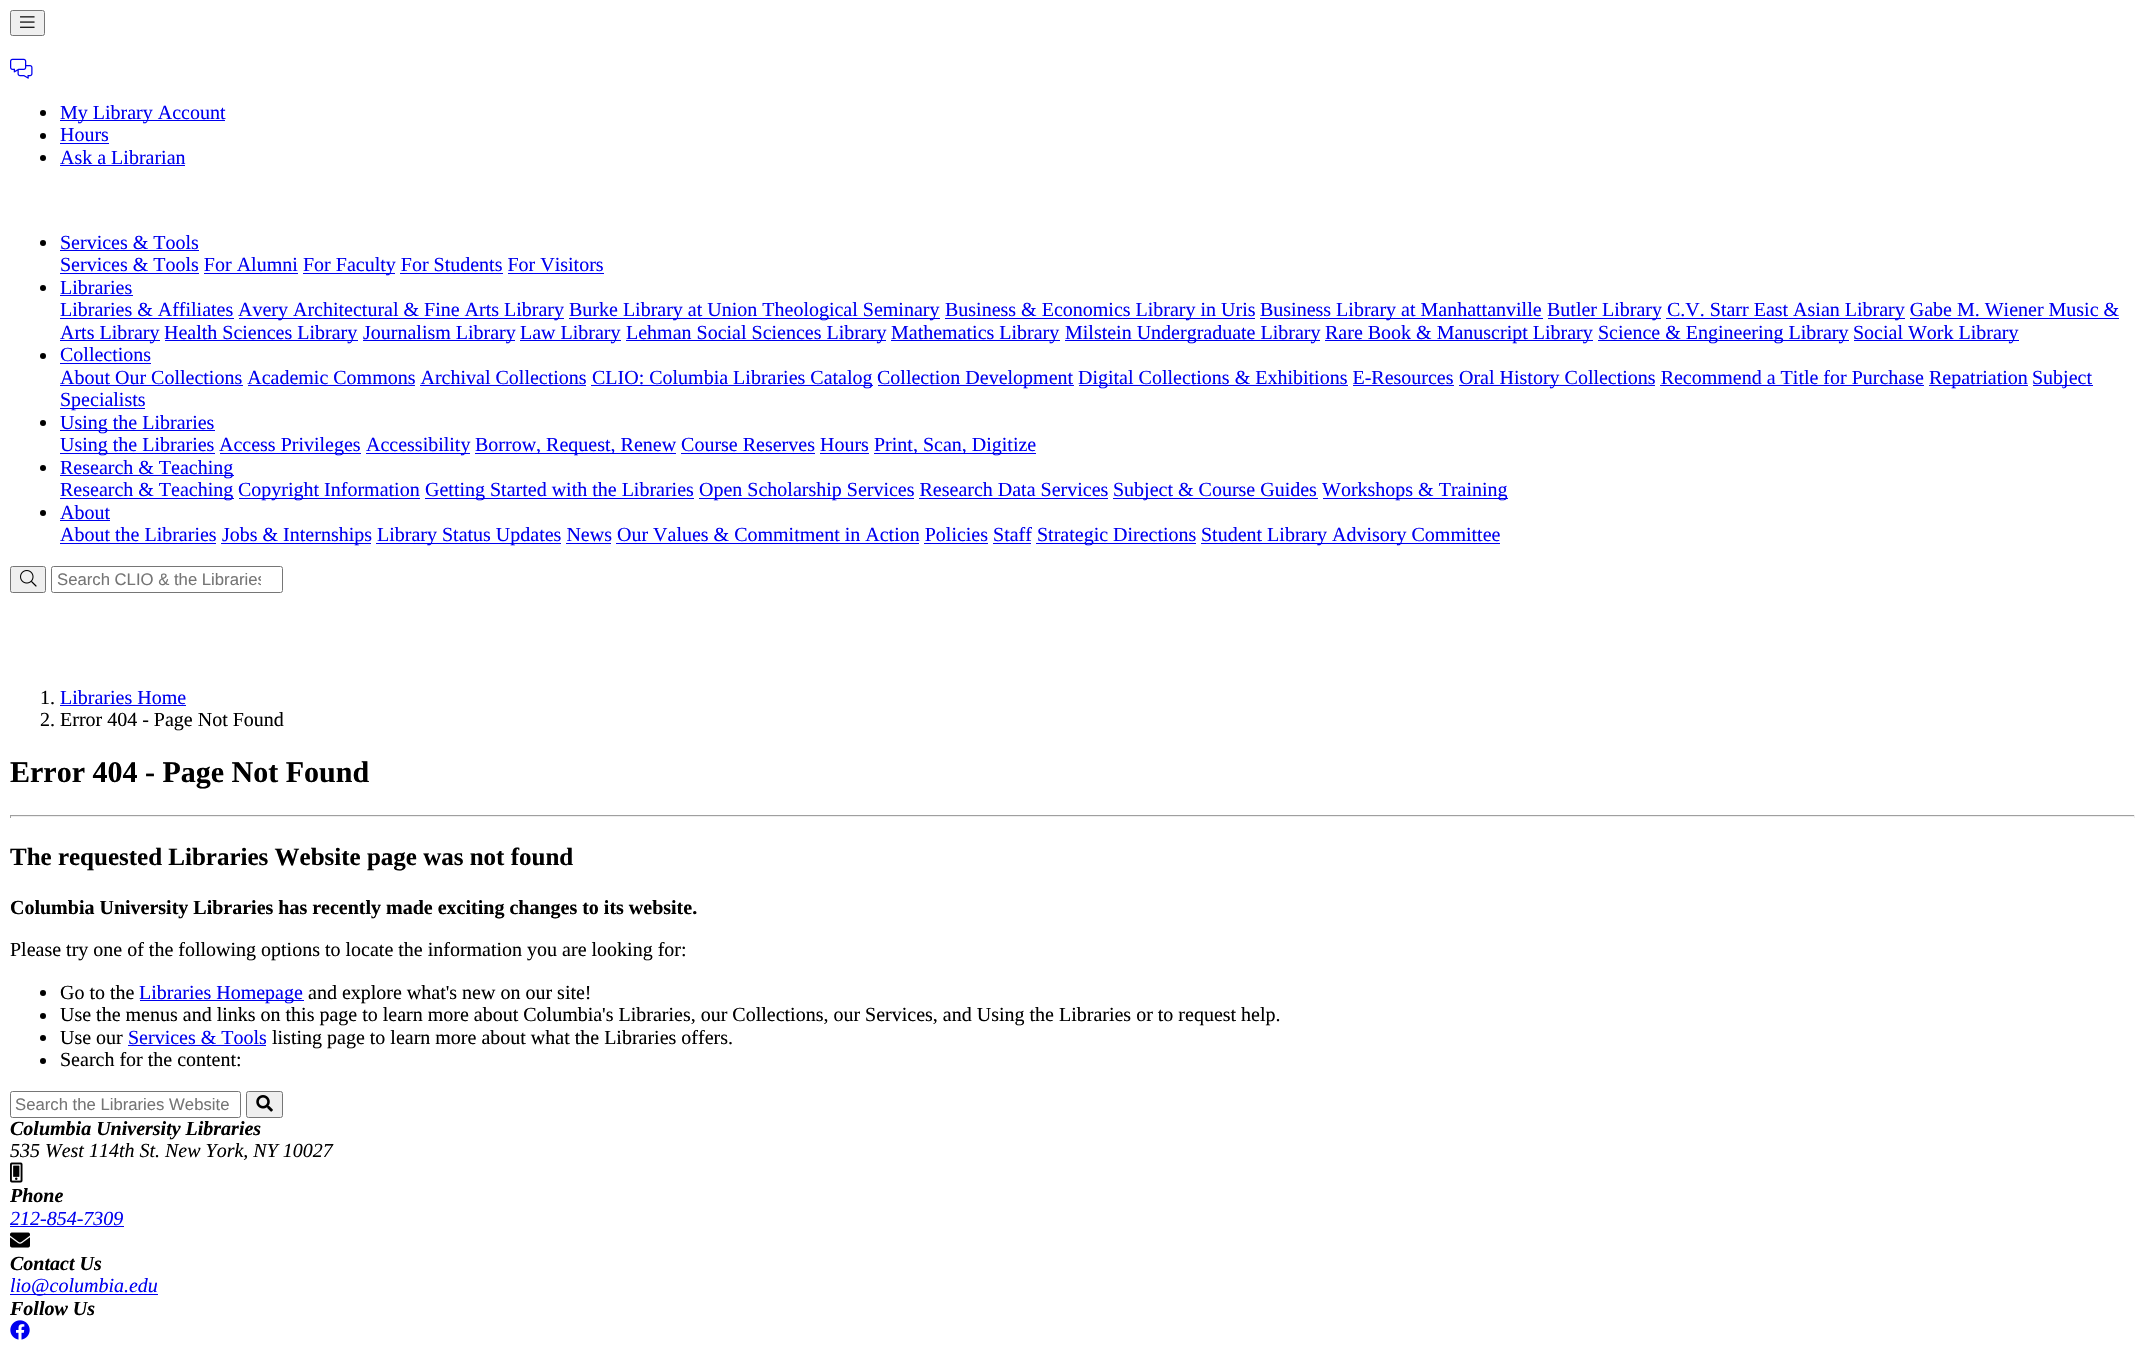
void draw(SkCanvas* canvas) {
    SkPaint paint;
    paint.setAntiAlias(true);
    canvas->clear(0xFFFFFFFF);
    paint.setColor(0xFFEFEFEF);
    canvas->drawRoundRect(SkRect::MakeXYWH(10.5f, 10.5f, 34, 25), 2, 2, paint);
    paint.setStyle(SkPaint::kStroke_Style);
    paint.setStrokeWidth(1);
    paint.setColor(0xFF767676);
    canvas->drawRoundRect(SkRect::MakeXYWH(10.5f, 10.5f, 34, 25), 2, 2, paint);
    canvas->drawImageRect(SkImages::DeferredFromEncodedData(SkData::MakeFromFileName("img1.png")), SkRect::MakeXYWH(20, 16, 15, 12), SkSamplingOptions());
    canvas->drawImageRect(SkImages::DeferredFromEncodedData(SkData::MakeFromFileName("img2.png")), SkRect::MakeXYWH(10, 58, 23, 21), SkSamplingOptions());
    paint.setStyle(SkPaint::kFill_Style);
    paint.setColor(0xFF000000);
    canvas->drawCircle(43, 113, 3, paint);
    paint.setColor(0xFF0000EE);
    canvas->drawRect(SkRect::MakeXYWH(60, 120, 165, 1), paint);
    SkFont font1(fontMgr->matchFamilyStyle("Liberation Serif", SkFontStyle::Normal()), 20);
    font1.setSubpixel(true);
    canvas->drawString("My Library Account", 60, 119, font1, paint);
    paint.setColor(0xFF000000);
    canvas->drawCircle(43, 136, 3, paint);
    paint.setColor(0xFF0000EE);
    canvas->drawString("Hours", 60, 141, font1, paint);
    canvas->drawRect(SkRect::MakeXYWH(60, 143, 49, 1), paint);
    paint.setColor(0xFF000000);
    canvas->drawCircle(43, 158, 3, paint);
    paint.setColor(0xFF0000EE);
    canvas->drawString("Ask a Librarian", 60, 164, font1, paint);
    canvas->drawRect(SkRect::MakeXYWH(60, 165, 125, 1), paint);
    paint.setColor(0xFF000000);
    canvas->drawCircle(43, 243, 3, paint);
    paint.setColor(0xFF0000EE);
    canvas->drawString("Services & Tools", 60, 249, font1, paint);
    canvas->drawRect(SkRect::MakeXYWH(60, 250, 139, 1), paint);
    canvas->drawString("Services & Tools For Alumni", 60, 271, font1, paint);
    canvas->drawRect(SkRect::MakeXYWH(60, 273, 139, 1), paint);
    canvas->drawRect(SkRect::MakeXYWH(303, 273, 92, 1), paint);
    canvas->drawString("For Faculty For Students For Visitors", 303, 271, font1, paint);
    canvas->drawRect(SkRect::MakeXYWH(204, 273, 94, 1), paint);
    canvas->drawRect(SkRect::MakeXYWH(400, 273, 103, 1), paint);
    canvas->drawRect(SkRect::MakeXYWH(508, 273, 96, 1), paint);
    paint.setColor(0xFF000000);
    canvas->drawCircle(43, 288, 3, paint);
    paint.setColor(0xFF0000EE);
    canvas->drawString("Libraries", 60, 294, font1, paint);
    canvas->drawRect(SkRect::MakeXYWH(60, 295, 73, 1), paint);
    canvas->drawString("Libraries & Affiliates", 60, 316, font1, paint);
    canvas->drawRect(SkRect::MakeXYWH(60, 318, 174, 1), paint);
    canvas->drawRect(SkRect::MakeXYWH(239, 318, 325, 1), paint);
    canvas->drawString("Avery Architectural & Fine Arts Library", 238, 316, font1, paint);
    canvas->drawRect(SkRect::MakeXYWH(569, 318, 371, 1), paint);
    canvas->drawString("Burke Library at Union Theological Seminary", 569, 316, font1, paint);
    canvas->drawRect(SkRect::MakeXYWH(945, 318, 310, 1), paint);
    canvas->drawString("Business & Economics Library in Uris", 945, 316, font1, paint);
    canvas->drawRect(SkRect::MakeXYWH(1260, 318, 283, 1), paint);
    canvas->drawString("Business Library at Manhattanville", 1260, 316, font1, paint);
    canvas->drawRect(SkRect::MakeXYWH(1548, 318, 113, 1), paint);
    canvas->drawString("Butler Library", 1547, 316, font1, paint);
    canvas->drawRect(SkRect::MakeXYWH(1666, 318, 239, 1), paint);
    canvas->drawString("C.V. Starr East Asian Library Gabe M. Wiener Music &", 1667, 316, font1, paint);
    canvas->drawRect(SkRect::MakeXYWH(60, 340, 100, 1), paint);
    canvas->drawString("Arts Library", 60, 339, font1, paint);
    canvas->drawRect(SkRect::MakeXYWH(1910, 318, 209, 1), paint);
    canvas->drawRect(SkRect::MakeXYWH(165, 340, 193, 1), paint);
    canvas->drawString("Health Sciences Library", 164, 339, font1, paint);
    canvas->drawRect(SkRect::MakeXYWH(363, 340, 152, 1), paint);
    canvas->drawString("Journalism Library", 363, 339, font1, paint);
    canvas->drawRect(SkRect::MakeXYWH(520, 340, 101, 1), paint);
    canvas->drawString("Law Library", 520, 339, font1, paint);
    canvas->drawRect(SkRect::MakeXYWH(626, 340, 260, 1), paint);
    canvas->drawString("Lehman Social Sciences Library", 626, 339, font1, paint);
    canvas->drawRect(SkRect::MakeXYWH(891, 340, 169, 1), paint);
    canvas->drawString("Mathematics Library", 891, 339, font1, paint);
    canvas->drawRect(SkRect::MakeXYWH(1065, 340, 255, 1), paint);
    canvas->drawString("Milstein Undergraduate Library", 1065, 339, font1, paint);
    canvas->drawRect(SkRect::MakeXYWH(1325, 340, 268, 1), paint);
    canvas->drawString("Rare Book & Manuscript Library", 1325, 339, font1, paint);
    canvas->drawRect(SkRect::MakeXYWH(1598, 340, 251, 1), paint);
    canvas->drawString("Science & Engineering Library", 1598, 339, font1, paint);
    canvas->drawRect(SkRect::MakeXYWH(1854, 340, 165, 1), paint);
    canvas->drawString("Social Work Library", 1853, 339, font1, paint);
    paint.setColor(0xFF000000);
    canvas->drawCircle(43, 356, 3, paint);
    paint.setColor(0xFF0000EE);
    canvas->drawString("Collections", 60, 361, font1, paint);
    canvas->drawRect(SkRect::MakeXYWH(60, 363, 91, 1), paint);
    canvas->drawString("About Our Collections Academic Commons Archival Collections", 60, 384, font1, paint);
    canvas->drawRect(SkRect::MakeXYWH(60, 385, 183, 1), paint);
    canvas->drawRect(SkRect::MakeXYWH(591, 385, 282, 1), paint);
    canvas->drawString("CLIO: Columbia Libraries Catalog", 592, 384, font1, paint);
    canvas->drawRect(SkRect::MakeXYWH(878, 385, 196, 1), paint);
    canvas->drawString("Collection Development", 877, 384, font1, paint);
    canvas->drawRect(SkRect::MakeXYWH(1079, 385, 269, 1), paint);
    canvas->drawString("Digital Collections & Exhibitions E-Resources", 1078, 384, font1, paint);
    canvas->drawRect(SkRect::MakeXYWH(1459, 385, 196, 1), paint);
    canvas->drawString("Oral History Collections Recommend a Title for Purchase", 1459, 384, font1, paint);
    canvas->drawRect(SkRect::MakeXYWH(1929, 385, 99, 1), paint);
    canvas->drawString("Repatriation", 1929, 384, font1, paint);
    canvas->drawRect(SkRect::MakeXYWH(2033, 385, 60, 1), paint);
    canvas->drawString("Subject", 2032, 384, font1, paint);
    canvas->drawRect(SkRect::MakeXYWH(248, 385, 167, 1), paint);
    canvas->drawRect(SkRect::MakeXYWH(420, 385, 166, 1), paint);
    canvas->drawRect(SkRect::MakeXYWH(1353, 385, 101, 1), paint);
    canvas->drawRect(SkRect::MakeXYWH(1660, 385, 264, 1), paint);
    canvas->drawRect(SkRect::MakeXYWH(60, 408, 85, 1), paint);
    canvas->drawString("Specialists", 60, 406, font1, paint);
    paint.setColor(0xFF000000);
    canvas->drawCircle(43, 423, 3, paint);
    paint.setColor(0xFF0000EE);
    canvas->drawRect(SkRect::MakeXYWH(60, 430, 155, 1), paint);
    canvas->drawString("Using the Libraries", 60, 429, font1, paint);
    canvas->drawRect(SkRect::MakeXYWH(60, 453, 155, 1), paint);
    canvas->drawString("Using the Libraries", 60, 451, font1, paint);
    canvas->drawRect(SkRect::MakeXYWH(220, 453, 141, 1), paint);
    canvas->drawString("Access Privileges", 219, 451, font1, paint);
    canvas->drawRect(SkRect::MakeXYWH(366, 453, 104, 1), paint);
    canvas->drawString("Accessibility", 366, 451, font1, paint);
    canvas->drawRect(SkRect::MakeXYWH(475, 453, 201, 1), paint);
    canvas->drawString("Borrow, Request, Renew Course Reserves Hours", 475, 451, font1, paint);
    canvas->drawRect(SkRect::MakeXYWH(874, 453, 162, 1), paint);
    canvas->drawString("Print, Scan, Digitize", 874, 451, font1, paint);
    canvas->drawRect(SkRect::MakeXYWH(681, 453, 134, 1), paint);
    canvas->drawRect(SkRect::MakeXYWH(820, 453, 49, 1), paint);
    paint.setColor(0xFF000000);
    canvas->drawCircle(43, 468, 3, paint);
    paint.setColor(0xFF0000EE);
    canvas->drawRect(SkRect::MakeXYWH(60, 475, 174, 1), paint);
    canvas->drawString("Research & Teaching", 60, 474, font1, paint);
    canvas->drawRect(SkRect::MakeXYWH(60, 498, 174, 1), paint);
    canvas->drawString("Research & Teaching", 60, 496, font1, paint);
    canvas->drawRect(SkRect::MakeXYWH(239, 498, 181, 1), paint);
    canvas->drawString("Copyright Information", 238, 496, font1, paint);
    canvas->drawRect(SkRect::MakeXYWH(425, 498, 269, 1), paint);
    canvas->drawString("Getting Started with the Libraries", 425, 496, font1, paint);
    canvas->drawRect(SkRect::MakeXYWH(699, 498, 215, 1), paint);
    canvas->drawString("Open Scholarship Services Research Data Services", 699, 496, font1, paint);
    canvas->drawRect(SkRect::MakeXYWH(1113, 498, 205, 1), paint);
    canvas->drawString("Subject & Course Guides", 1113, 496, font1, paint);
    canvas->drawRect(SkRect::MakeXYWH(1323, 498, 185, 1), paint);
    canvas->drawString("Workshops & Training", 1322, 496, font1, paint);
    canvas->drawRect(SkRect::MakeXYWH(919, 498, 189, 1), paint);
    paint.setColor(0xFF000000);
    canvas->drawCircle(43, 513, 3, paint);
    paint.setColor(0xFF0000EE);
    canvas->drawString("About", 60, 519, font1, paint);
    canvas->drawRect(SkRect::MakeXYWH(60, 520, 50, 1), paint);
    canvas->drawString("About the Libraries", 60, 541, font1, paint);
    canvas->drawRect(SkRect::MakeXYWH(60, 543, 156, 1), paint);
    canvas->drawRect(SkRect::MakeXYWH(221, 543, 150, 1), paint);
    canvas->drawString("Jobs & Internships", 222, 541, font1, paint);
    canvas->drawRect(SkRect::MakeXYWH(376, 543, 185, 1), paint);
    canvas->drawString("Library Status Updates News Our Values & Commitment in Action Policies Staff", 377, 541, font1, paint);
    canvas->drawRect(SkRect::MakeXYWH(1036, 543, 160, 1), paint);
    canvas->drawString("Strategic Directions", 1037, 541, font1, paint);
    canvas->drawRect(SkRect::MakeXYWH(1201, 543, 299, 1), paint);
    canvas->drawString("Student Library Advisory Committee", 1201, 541, font1, paint);
    canvas->drawRect(SkRect::MakeXYWH(566, 543, 45, 1), paint);
    canvas->drawRect(SkRect::MakeXYWH(616, 543, 303, 1), paint);
    canvas->drawRect(SkRect::MakeXYWH(924, 543, 64, 1), paint);
    canvas->drawRect(SkRect::MakeXYWH(993, 543, 38, 1), paint);
    paint.setColor(0xFFEFEFEF);
    canvas->drawRoundRect(SkRect::MakeXYWH(10.5f, 566.5f, 35, 26), 2, 2, paint);
    paint.setStyle(SkPaint::kStroke_Style);
    paint.setColor(0xFF767676);
    canvas->drawRoundRect(SkRect::MakeXYWH(10.5f, 566.5f, 35, 26), 2, 2, paint);
    canvas->drawImageRect(SkImages::DeferredFromEncodedData(SkData::MakeFromFileName("img3.png")), SkRect::MakeXYWH(20, 570, 17, 17), SkSamplingOptions());
    canvas->drawRoundRect(SkRect::MakeXYWH(51.5f, 566.5f, 231, 26), 2, 2, paint);
    canvas->save();
    canvas->clipRect(SkRect::MakeXYWH(56, 570, 205, 19));
    SkFont font2(fontMgr->matchFamilyStyle("Liberation Sans", SkFontStyle::Normal()), 16.7f);
    font2.setSubpixel(true);
    paint.setStyle(SkPaint::kFill_Style);
    paint.setColor(0xFF757575);
    canvas->drawString("Search CLIO & the Libraries", 57, 585, font2, paint);
    canvas->restore();
    paint.setColor(0xFF000000);
    canvas->drawString("1.", 40, 704, font1, paint);
    paint.setColor(0xFF0000EE);
    canvas->drawString("Libraries Home", 60, 704, font1, paint);
    canvas->drawRect(SkRect::MakeXYWH(60, 705, 126, 1), paint);
    paint.setColor(0xFF000000);
    canvas->drawString("2. Error 404 - Page Not Found", 40, 726, font1, paint);
    SkFont font3(fontMgr->matchFamilyStyle("Liberation Serif", SkFontStyle::Bold()), 30);
    font3.setSubpixel(true);
    canvas->drawString("Error 404 - Page Not Found", 10, 782, font3, paint);
    paint.setColor(0xFF9F9F9F);
    canvas->drawRect(SkRect::MakeXYWH(10, 815, 2125, 1), paint);
    paint.setColor(0xFFEEEEEE);
    canvas->drawRect(SkRect::MakeXYWH(2134, 815, 1, 3), paint);
    canvas->drawRect(SkRect::MakeXYWH(10, 816, 2125, 1), paint);
    paint.setColor(0xFF9F9F9F);
    canvas->drawRect(SkRect::MakeXYWH(10, 815, 1, 3), paint);
    SkFont font4(fontMgr->matchFamilyStyle("Liberation Serif", SkFontStyle::Bold()), 25);
    font4.setSubpixel(true);
    paint.setColor(0xFF000000);
    canvas->drawString("The requested Libraries Website page was not found", 10, 865, font4, paint);
    SkFont font5(fontMgr->matchFamilyStyle("Liberation Serif", SkFontStyle::Bold()), 20);
    font5.setSubpixel(true);
    canvas->drawString("Columbia University Libraries has recently made exciting changes to its website.", 10, 914, font5, paint);
    canvas->drawString("Please try one of the following options to locate the information you are looking for:", 10, 956, font1, paint);
    canvas->drawCircle(43, 993, 3, paint);
    canvas->drawString("Go to the", 60, 999, font1, paint);
    paint.setColor(0xFF0000EE);
    canvas->drawRect(SkRect::MakeXYWH(140, 1000, 164, 1), paint);
    canvas->drawString("Libraries Homepage", 139, 999, font1, paint);
    paint.setColor(0xFF000000);
    canvas->drawString("and explore what's new on our site!", 308, 999, font1, paint);
    canvas->drawCircle(43, 1016, 3, paint);
    canvas->drawString("Use the menus and links on this page to learn more about Columbia's Libraries, our Collections, our Services, and Using the Libraries or to request help.", 60, 1021, font1, paint);
    canvas->drawCircle(43, 1038, 3, paint);
    canvas->drawString("Use our", 60, 1044, font1, paint);
    paint.setColor(0xFF0000EE);
    canvas->drawString("Services & Tools", 128, 1044, font1, paint);
    canvas->drawRect(SkRect::MakeXYWH(128, 1045, 138, 1), paint);
    paint.setColor(0xFF000000);
    canvas->drawString("listing page to learn more about what the Libraries offers.", 272, 1044, font1, paint);
    canvas->drawCircle(43, 1061, 3, paint);
    canvas->drawString("Search for the content:", 60, 1066, font1, paint);
    paint.setStyle(SkPaint::kStroke_Style);
    paint.setColor(0xFF767676);
    canvas->drawRoundRect(SkRect::MakeXYWH(10.5f, 1091.5f, 230, 26), 2, 2, paint);
    paint.setStyle(SkPaint::kFill_Style);
    paint.setColor(0xFF757575);
    canvas->drawString("Search the Libraries Website", 15, 1110, font2, paint);
    paint.setColor(0xFFEFEFEF);
    canvas->drawRoundRect(SkRect::MakeXYWH(246.5f, 1091.5f, 36, 26), 2, 2, paint);
    paint.setStyle(SkPaint::kStroke_Style);
    paint.setColor(0xFF767676);
    canvas->drawRoundRect(SkRect::MakeXYWH(246.5f, 1091.5f, 36, 26), 2, 2, paint);
    canvas->drawImageRect(SkImages::DeferredFromEncodedData(SkData::MakeFromFileName("img4.png")), SkRect::MakeXYWH(256, 1095, 17, 17), SkSamplingOptions());
    SkFont font6(fontMgr->matchFamilyStyle("Liberation Serif", SkFontStyle::BoldItalic()), 20);
    font6.setSubpixel(true);
    paint.setStyle(SkPaint::kFill_Style);
    paint.setColor(0xFF000000);
    canvas->drawString("Columbia University Libraries", 10, 1135, font6, paint);
    SkFont font7(fontMgr->matchFamilyStyle("Liberation Serif", SkFontStyle::Italic()), 20);
    font7.setSubpixel(true);
    canvas->drawString("535 West 114th St. New York, NY 10027", 10, 1157, font7, paint);
    canvas->drawImageRect(SkImages::DeferredFromEncodedData(SkData::MakeFromFileName("img5.png")), SkRect::MakeXYWH(10, 1162, 13, 21), SkSamplingOptions());
    canvas->drawString("Phone", 10, 1202, font6, paint);
    paint.setColor(0xFF0000EE);
    canvas->drawString("212-854-7309", 10, 1225, font7, paint);
    canvas->drawRect(SkRect::MakeXYWH(10, 1226, 114, 1), paint);
    canvas->drawImageRect(SkImages::DeferredFromEncodedData(SkData::MakeFromFileName("img6.png")), SkRect::MakeXYWH(10, 1232, 20, 16), SkSamplingOptions());
    paint.setColor(0xFF000000);
    canvas->drawString("Contact Us", 10, 1270, font6, paint);
    paint.setColor(0xFF0000EE);
    canvas->drawRect(SkRect::MakeXYWH(10, 1294, 148, 1), paint);
    canvas->drawString("lio@columbia.edu", 10, 1292, font7, paint);
    paint.setColor(0xFF000000);
    canvas->drawString("Follow Us", 10, 1315, font6, paint);
    canvas->drawImageRect(SkImages::DeferredFromEncodedData(SkData::MakeFromFileName("img7.png")), SkRect::MakeXYWH(10, 1320, 20, 20), SkSamplingOptions());
}
